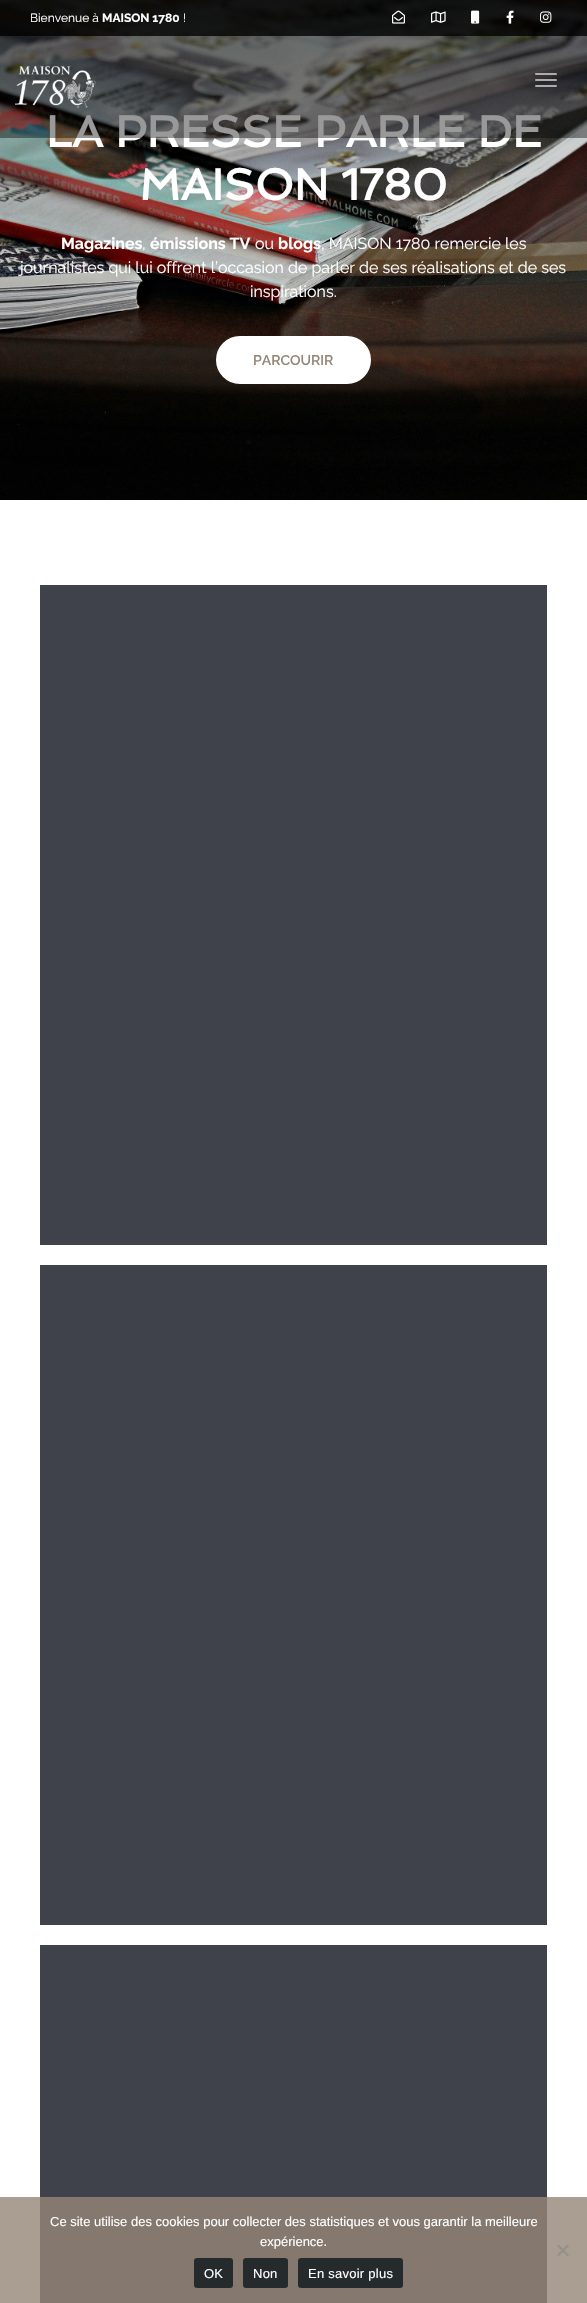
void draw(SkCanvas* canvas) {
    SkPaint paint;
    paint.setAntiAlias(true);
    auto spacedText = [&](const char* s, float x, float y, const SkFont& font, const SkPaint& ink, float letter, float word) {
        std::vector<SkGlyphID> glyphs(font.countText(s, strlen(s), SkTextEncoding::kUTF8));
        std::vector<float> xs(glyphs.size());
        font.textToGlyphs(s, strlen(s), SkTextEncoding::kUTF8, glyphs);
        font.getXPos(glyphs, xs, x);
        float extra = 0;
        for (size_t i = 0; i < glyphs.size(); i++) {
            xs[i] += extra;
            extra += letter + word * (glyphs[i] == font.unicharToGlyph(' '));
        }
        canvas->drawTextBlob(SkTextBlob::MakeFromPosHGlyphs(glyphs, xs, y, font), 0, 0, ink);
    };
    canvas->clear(0xFFFFFFFF);
    canvas->drawImageRect(SkImages::DeferredFromEncodedData(SkData::MakeFromFileName("img7.png")), SkRect::MakeXYWH(0, 0, 587, 500), SkSamplingOptions());
    SkFont font1(fontMgr->matchFamilyStyle("Spinnaker", SkFontStyle::Bold()), 44);
    font1.setSubpixel(true);
    paint.setColor(0xFFFFFFFF);
    canvas->drawString("LA PRESSE PARLE DE", 46, 147, font1, paint);
    paint.setColor(0x66000000);
    canvas->drawRect(SkRect::MakeXYWH(0, 0, 587, 138), paint);
    paint.setColor(0xCC000000);
    canvas->drawRect(SkRect::MakeXYWH(0, 0, 587, 36), paint);
    SkFont font2(fontMgr->matchFamilyStyle("Raleway", SkFontStyle::Normal()), 12);
    font2.setSubpixel(true);
    paint.setColor(0xFFFFFFFF);
    canvas->drawString("Bienvenue à", 30, 22, font2, paint);
    SkFont font3(fontMgr->matchFamilyStyle("Raleway", SkFontStyle::Bold()), 12);
    font3.setSubpixel(true);
    canvas->drawString("MAISON 1780", 102, 22, font3, paint);
    canvas->drawString("!", 183, 22, font2, paint);
    canvas->drawImageRect(SkImages::DeferredFromEncodedData(SkData::MakeFromFileName("img1.png")), SkRect::MakeXYWH(392, 10, 13, 14), SkSamplingOptions());
    canvas->drawImageRect(SkImages::DeferredFromEncodedData(SkData::MakeFromFileName("img2.png")), SkRect::MakeXYWH(431, 11, 15, 12), SkSamplingOptions());
    canvas->drawImageRect(SkImages::DeferredFromEncodedData(SkData::MakeFromFileName("img3.png")), SkRect::MakeXYWH(471, 10, 9, 14), SkSamplingOptions());
    canvas->drawImageRect(SkImages::DeferredFromEncodedData(SkData::MakeFromFileName("img4.png")), SkRect::MakeXYWH(506, 10, 8, 14), SkSamplingOptions());
    canvas->drawImageRect(SkImages::DeferredFromEncodedData(SkData::MakeFromFileName("img5.png")), SkRect::MakeXYWH(540, 11, 12, 12), SkSamplingOptions());
    canvas->drawImageRect(SkImages::DeferredFromEncodedData(SkData::MakeFromFileName("img6.png")), SkRect::MakeXYWH(15, 66, 81, 42), SkSamplingOptions());
    paint.setColor(0xFFACACAC);
    canvas->drawRoundRect(SkRect::MakeXYWH(535, 73, 22, 2), 1, 1, paint);
    canvas->drawRoundRect(SkRect::MakeXYWH(535, 79, 22, 2), 1, 1, paint);
    canvas->drawRoundRect(SkRect::MakeXYWH(535, 85, 22, 2), 1, 1, paint);
    paint.setColor(0xFFFFFFFF);
    canvas->drawString("MAISON 1780", 139, 200, font1, paint);
    SkFont font4(fontMgr->matchFamilyStyle("Raleway", SkFontStyle::Bold()), 16);
    font4.setSubpixel(true);
    canvas->drawString("Magazines", 61, 249, font4, paint);
    SkFont font5(fontMgr->matchFamilyStyle("Raleway", SkFontStyle::Normal()), 16);
    font5.setSubpixel(true);
    canvas->drawString(",", 142, 249, font5, paint);
    canvas->drawString("émissions TV", 150, 249, font4, paint);
    canvas->drawString("ou", 255, 249, font5, paint);
    canvas->drawString("blogs", 278, 249, font4, paint);
    canvas->drawString(", MAISON 1780 remercie les", 321, 249, font5, paint);
    canvas->drawString("journalistes qui lui offrent l’occasion de parler de ses réalisations et de ses", 20, 273, font5, paint);
    canvas->drawString("inspirations.", 250, 297, font5, paint);
    canvas->drawRoundRect(SkRect::MakeXYWH(217, 337, 153, 46), 23, 23, paint);
    paint.setStyle(SkPaint::kStroke_Style);
    paint.setStrokeWidth(2);
    canvas->drawRoundRect(SkRect::MakeXYWH(217, 337, 153, 46), 23, 23, paint);
    SkFont font6(fontMgr->matchFamilyStyle("Raleway", SkFontStyle(600, SkFontStyle::kNormal_Width, SkFontStyle::kUpright_Slant)), 14);
    font6.setSubpixel(true);
    paint.setStyle(SkPaint::kFill_Style);
    paint.setColor(0xFF958678);
    canvas->drawString("PARCOURIR", 253, 365, font6, paint);
    paint.setColor(0xFFAA9E93);
    canvas->drawRect(SkRect::MakeXYWH(0, 2197, 587, 106), paint);
    paint.setColor(0xFF3F424A);
    canvas->drawRect(SkRect::MakeXYWH(40, 585, 507, 660), paint);
    canvas->drawRect(SkRect::MakeXYWH(40, 1265, 507, 660), paint);
    canvas->drawRect(SkRect::MakeXYWH(40, 1945, 507, 252), paint);
    paint.setColor(0xFF84786F);
    canvas->drawRect(SkRect::MakeXYWH(40, 2197, 507, 106), paint);
    SkFont font7(fontMgr->matchFamilyStyle("Liberation Sans", SkFontStyle::Normal()), 13);
    font7.setSubpixel(true);
    paint.setColor(0xFFFFFFFF);
    canvas->drawString("Ce site utilise des cookies pour collecter des statistiques et vous garantir la meilleure", 50, 2226, font7, paint);
    canvas->drawString("expérience.", 260, 2246, font7, paint);
    paint.setColor(0xFF958F8A);
    canvas->drawPath(SkPathBuilder().moveTo(567.5f, 2244.5f).lineTo(569, 2246).lineTo(558.5f, 2256.5f).lineTo(557, 2255).close().detach(), paint);
    canvas->drawPath(SkPathBuilder().moveTo(557, 2246).lineTo(558.5f, 2244.5f).lineTo(569, 2255).lineTo(567.5f, 2256.5f).close().detach(), paint);
    paint.setColor(0xFF252B2D);
    canvas->drawRoundRect(SkRect::MakeXYWH(194, 2258, 39, 30), 3, 3, paint);
    paint.setColor(0xFFFFFFFF);
    spacedText("OK", 204, 2278, font7, paint, 0.25f, 0);
    paint.setColor(0xFF252B2D);
    canvas->drawRoundRect(SkRect::MakeXYWH(243, 2258, 45, 30), 3, 3, paint);
    paint.setColor(0xFFFFFFFF);
    spacedText("Non", 253, 2278, font7, paint, 0.25f, 0);
    paint.setColor(0xFF252B2D);
    canvas->drawRoundRect(SkRect::MakeXYWH(298, 2258, 105, 30), 3, 3, paint);
    paint.setColor(0xFFFFFFFF);
    spacedText("En savoir plus", 308, 2278, font7, paint, 0.25f, 0);
}
